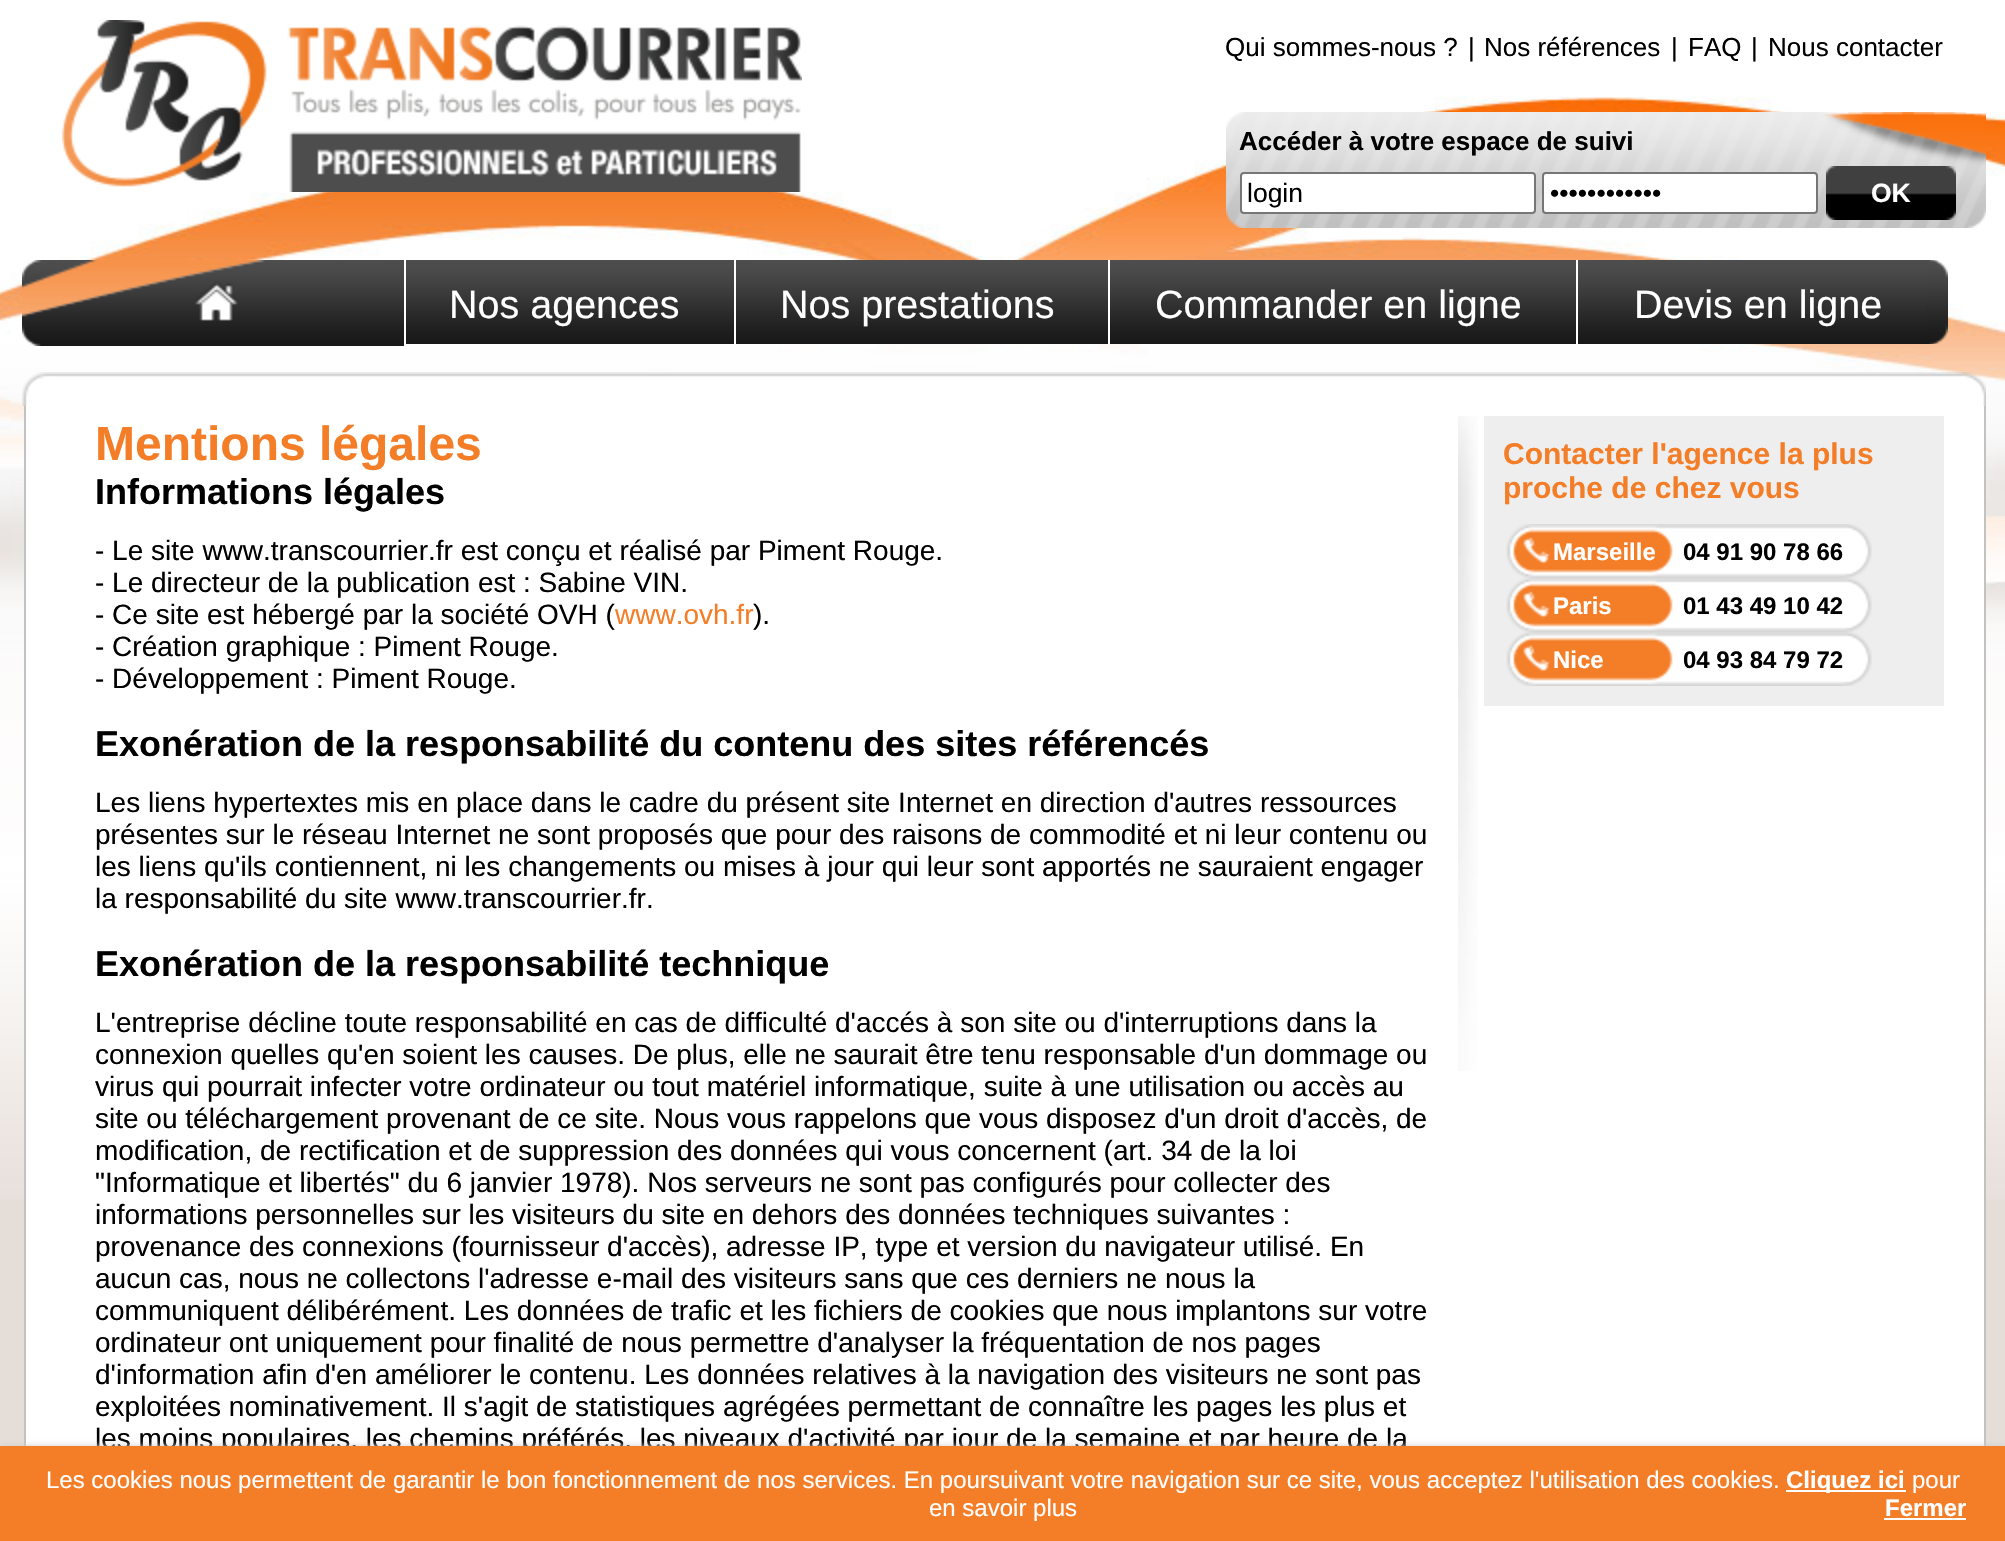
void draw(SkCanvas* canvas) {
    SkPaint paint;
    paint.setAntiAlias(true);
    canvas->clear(0xFFE5DDD7);
    canvas->drawImageRect(SkImages::DeferredFromEncodedData(SkData::MakeFromFileName("img1.png")), SkRect::MakeXYWH(0, 0, 2005, 1200), SkSamplingOptions());
    canvas->drawImageRect(SkImages::DeferredFromEncodedData(SkData::MakeFromFileName("img2.png")), SkRect::MakeXYWH(62, 20, 740, 172), SkSamplingOptions());
    SkFont font1(fontMgr->matchFamilyStyle("Liberation Sans", SkFontStyle::Normal()), 26);
    font1.setSubpixel(true);
    paint.setColor(0xFF000000);
    canvas->drawString("Qui sommes-nous ?", 1225, 56, font1, paint);
    canvas->drawString("|", 1468, 56, font1, paint);
    canvas->drawString("Nos références", 1484, 56, font1, paint);
    canvas->drawString("|", 1671, 56, font1, paint);
    canvas->drawString("FAQ", 1688, 56, font1, paint);
    canvas->drawString("|", 1751, 56, font1, paint);
    canvas->drawString("Nous contacter", 1768, 56, font1, paint);
    canvas->drawImageRect(SkImages::DeferredFromEncodedData(SkData::MakeFromFileName("img3.png")), SkRect::MakeXYWH(1226, 112, 760, 116), SkSamplingOptions());
    SkFont font2(fontMgr->matchFamilyStyle("Liberation Sans", SkFontStyle::Bold()), 26);
    font2.setSubpixel(true);
    canvas->drawString("Accéder à votre espace de suivi", 1239, 150, font2, paint);
    paint.setColor(0xFFFFFFFF);
    canvas->drawRoundRect(SkRect::MakeXYWH(1241, 173, 294, 40), 3, 3, paint);
    paint.setStyle(SkPaint::kStroke_Style);
    paint.setStrokeWidth(2);
    paint.setColor(0xFF767676);
    canvas->drawRoundRect(SkRect::MakeXYWH(1241, 173, 294, 40), 3, 3, paint);
    SkFont font3(fontMgr->matchFamilyStyle("Liberation Sans", SkFontStyle::Normal()), 26.5f);
    font3.setSubpixel(true);
    paint.setStyle(SkPaint::kFill_Style);
    paint.setColor(0xFF000000);
    canvas->drawString("login", 1247, 202, font3, paint);
    paint.setColor(0xFFFFFFFF);
    canvas->drawRoundRect(SkRect::MakeXYWH(1543, 173, 274, 40), 3, 3, paint);
    paint.setStyle(SkPaint::kStroke_Style);
    paint.setColor(0xFF767676);
    canvas->drawRoundRect(SkRect::MakeXYWH(1543, 173, 274, 40), 3, 3, paint);
    paint.setStyle(SkPaint::kFill_Style);
    paint.setColor(0xFF000000);
    canvas->drawString("••••••••••••", 1550, 202, font3, paint);
    canvas->drawImageRect(SkImages::DeferredFromEncodedData(SkData::MakeFromFileName("img4.png")), SkRect::MakeXYWH(1826, 166, 130, 54), SkSamplingOptions());
    SkFont font4(fontMgr->matchFamilyStyle("Liberation Sans", SkFontStyle::Bold()), 26.5f);
    font4.setSubpixel(true);
    paint.setColor(0xFFFFFFFF);
    canvas->drawString("OK", 1871, 202, font4, paint);
    canvas->drawImageRect(SkImages::DeferredFromEncodedData(SkData::MakeFromFileName("img5.png")), SkRect::MakeXYWH(22, 260, 382, 86), SkSamplingOptions());
    canvas->drawImageRect(SkImages::DeferredFromEncodedData(SkData::MakeFromFileName("img6.png")), SkRect::MakeXYWH(406, 260, 328, 84), SkSamplingOptions());
    SkFont font5(fontMgr->matchFamilyStyle("Liberation Sans", SkFontStyle::Normal()), 39.5f);
    font5.setSubpixel(true);
    canvas->drawString("Nos agences", 449, 318, font5, paint);
    canvas->drawRect(SkRect::MakeXYWH(1108, 260, 2, 84), paint);
    canvas->drawImageRect(SkImages::DeferredFromEncodedData(SkData::MakeFromFileName("img7.png")), SkRect::MakeXYWH(736, 260, 372, 84), SkSamplingOptions());
    canvas->drawString("Nos prestations", 780, 318, font5, paint);
    canvas->drawRect(SkRect::MakeXYWH(1576, 260, 2, 71), paint);
    canvas->drawImageRect(SkImages::DeferredFromEncodedData(SkData::MakeFromFileName("img8.png")), SkRect::MakeXYWH(1110, 260, 466, 84), SkSamplingOptions());
    canvas->drawString("Commander en ligne", 1155, 318, font5, paint);
    canvas->drawImageRect(SkImages::DeferredFromEncodedData(SkData::MakeFromFileName("img9.png")), SkRect::MakeXYWH(1926, 260, 22, 84), SkSamplingOptions());
    canvas->drawImageRect(SkImages::DeferredFromEncodedData(SkData::MakeFromFileName("img10.png")), SkRect::MakeXYWH(1578, 260, 348, 84), SkSamplingOptions());
    canvas->drawString("Devis en ligne", 1634, 318, font5, paint);
    canvas->drawImageRect(SkImages::DeferredFromEncodedData(SkData::MakeFromFileName("img11.png")), SkRect::MakeXYWH(22, 372, 1964, 34), SkSamplingOptions());
    canvas->drawRect(SkRect::MakeXYWH(26, 406, 1958, 1040), paint);
    paint.setColor(0xFFC2C2C1);
    canvas->drawRect(SkRect::MakeXYWH(1984, 406, 2, 1040), paint);
    canvas->drawRect(SkRect::MakeXYWH(24, 406, 2, 1040), paint);
    canvas->drawImageRect(SkImages::DeferredFromEncodedData(SkData::MakeFromFileName("img12.png")), SkRect::MakeXYWH(1458, 416, 20, 655), SkSamplingOptions());
    SkFont font6(fontMgr->matchFamilyStyle("Liberation Sans", SkFontStyle::Bold()), 48);
    font6.setSubpixel(true);
    paint.setColor(0xFFF47D27);
    canvas->drawString("Mentions légales", 95, 460, font6, paint);
    SkFont font7(fontMgr->matchFamilyStyle("Liberation Sans", SkFontStyle::Bold()), 36);
    font7.setSubpixel(true);
    paint.setColor(0xFF000000);
    canvas->drawString("Informations légales", 95, 504, font7, paint);
    SkFont font8(fontMgr->matchFamilyStyle("Liberation Sans", SkFontStyle::Normal()), 28);
    font8.setSubpixel(true);
    canvas->drawString("- Le site www.transcourrier.fr est conçu et réalisé par Piment Rouge.", 95, 560, font8, paint);
    canvas->drawString("- Le directeur de la publication est : Sabine VIN.", 95, 592, font8, paint);
    canvas->drawString("- Ce site est hébergé par la société OVH (", 95, 624, font8, paint);
    paint.setColor(0xFFF47D27);
    canvas->drawString("www.ovh.fr", 615, 624, font8, paint);
    paint.setColor(0xFF000000);
    canvas->drawString(").", 753, 624, font8, paint);
    canvas->drawString("- Création graphique : Piment Rouge.", 95, 656, font8, paint);
    canvas->drawString("- Développement : Piment Rouge.", 95, 688, font8, paint);
    canvas->drawString("Exonération de la responsabilité du contenu des sites référencés", 95, 756, font7, paint);
    canvas->drawString("Les liens hypertextes mis en place dans le cadre du présent site Internet en direction d'autres ressources", 95, 812, font8, paint);
    canvas->drawString("présentes sur le réseau Internet ne sont proposés que pour des raisons de commodité et ni leur contenu ou", 95, 844, font8, paint);
    canvas->drawString("les liens qu'ils contiennent, ni les changements ou mises à jour qui leur sont apportés ne sauraient engager", 95, 876, font8, paint);
    canvas->drawString("la responsabilité du site www.transcourrier.fr.", 95, 908, font8, paint);
    canvas->drawString("Exonération de la responsabilité technique", 95, 976, font7, paint);
    canvas->drawString("L'entreprise décline toute responsabilité en cas de difficulté d'accés à son site ou d'interruptions dans la", 95, 1032, font8, paint);
    canvas->drawString("connexion quelles qu'en soient les causes. De plus, elle ne saurait être tenu responsable d'un dommage ou", 95, 1064, font8, paint);
    canvas->drawString("virus qui pourrait infecter votre ordinateur ou tout matériel informatique, suite à une utilisation ou accès au", 95, 1096, font8, paint);
    canvas->drawString("site ou téléchargement provenant de ce site. Nous vous rappelons que vous disposez d'un droit d'accès, de", 95, 1128, font8, paint);
    canvas->drawString("modification, de rectification et de suppression des données qui vous concernent (art. 34 de la loi", 95, 1160, font8, paint);
    canvas->drawString("\"Informatique et libertés\" du 6 janvier 1978). Nos serveurs ne sont pas configurés pour collecter des", 95, 1192, font8, paint);
    canvas->drawString("informations personnelles sur les visiteurs du site en dehors des données techniques suivantes :", 95, 1224, font8, paint);
    canvas->drawString("provenance des connexions (fournisseur d'accès), adresse IP, type et version du navigateur utilisé. En", 95, 1256, font8, paint);
    canvas->drawString("aucun cas, nous ne collectons l'adresse e-mail des visiteurs sans que ces derniers ne nous la", 95, 1288, font8, paint);
    canvas->drawString("communiquent délibérément. Les données de trafic et les fichiers de cookies que nous implantons sur votre", 95, 1320, font8, paint);
    canvas->drawString("ordinateur ont uniquement pour finalité de nous permettre d'analyser la fréquentation de nos pages", 95, 1352, font8, paint);
    canvas->drawString("d'information afin d'en améliorer le contenu. Les données relatives à la navigation des visiteurs ne sont pas", 95, 1384, font8, paint);
    canvas->drawString("exploitées nominativement. Il s'agit de statistiques agrégées permettant de connaître les pages les plus et", 95, 1416, font8, paint);
    canvas->drawString("les moins populaires, les chemins préférés, les niveaux d'activité par jour de la semaine et par heure de la", 95, 1448, font8, paint);
    paint.setColor(0xFFEEEEEE);
    canvas->drawRect(SkRect::MakeXYWH(1484, 416, 460, 290), paint);
    SkFont font9(fontMgr->matchFamilyStyle("Liberation Sans", SkFontStyle::Bold()), 30);
    font9.setSubpixel(true);
    paint.setColor(0xFFF47D27);
    canvas->drawString("Contacter l'agence la plus", 1503, 464, font9, paint);
    canvas->drawString("proche de chez vous", 1503, 498, font9, paint);
    canvas->drawImageRect(SkImages::DeferredFromEncodedData(SkData::MakeFromFileName("img13.png")), SkRect::MakeXYWH(1506, 524, 366, 54), SkSamplingOptions());
    SkFont font10(fontMgr->matchFamilyStyle("Liberation Sans", SkFontStyle::Bold()), 24);
    font10.setSubpixel(true);
    paint.setColor(0xFFFFFFFF);
    canvas->drawString("Marseille", 1553, 560, font10, paint);
    paint.setColor(0xFF000000);
    canvas->drawString("04 91 90 78 66", 1683, 560, font10, paint);
    canvas->drawImageRect(SkImages::DeferredFromEncodedData(SkData::MakeFromFileName("img13.png")), SkRect::MakeXYWH(1506, 578, 366, 54), SkSamplingOptions());
    paint.setColor(0xFFFFFFFF);
    canvas->drawString("Paris", 1553, 614, font10, paint);
    paint.setColor(0xFF000000);
    canvas->drawString("01 43 49 10 42", 1683, 614, font10, paint);
    canvas->drawImageRect(SkImages::DeferredFromEncodedData(SkData::MakeFromFileName("img13.png")), SkRect::MakeXYWH(1506, 632, 366, 54), SkSamplingOptions());
    paint.setColor(0xFFFFFFFF);
    canvas->drawString("Nice", 1553, 668, font10, paint);
    paint.setColor(0xFF000000);
    canvas->drawString("04 93 84 79 72", 1683, 668, font10, paint);
    paint.setColor(0xFFCCCCCC);
    paint.setMaskFilter(SkMaskFilter::MakeBlur(kNormal_SkBlurStyle, 3));
    canvas->drawRect(SkRect::MakeXYWH(0, 1446, 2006, 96), paint);
    paint.setMaskFilter(nullptr);
    paint.setColor(0xFFF47D27);
    canvas->drawRect(SkRect::MakeXYWH(0, 1446, 2005, 95), paint);
    SkFont font11(fontMgr->matchFamilyStyle("Liberation Sans", SkFontStyle::Normal()), 24);
    font11.setSubpixel(true);
    paint.setColor(0xFFFFFFFF);
    canvas->drawString("Les cookies nous permettent de garantir le bon fonctionnement de nos services. En poursuivant votre navigation sur ce site, vous acceptez l'utilisation des cookies.", 46, 1488, font11, paint);
    canvas->drawRect(SkRect::MakeXYWH(1786, 1490, 120, 2), paint);
    canvas->drawString("Cliquez ici", 1786, 1488, font10, paint);
    canvas->drawString("pour", 1912, 1488, font11, paint);
    canvas->drawString("en savoir plus", 929, 1516, font11, paint);
    canvas->drawString("Fermer", 1885, 1516, font10, paint);
    canvas->drawRect(SkRect::MakeXYWH(1884, 1518, 82, 2), paint);
}
